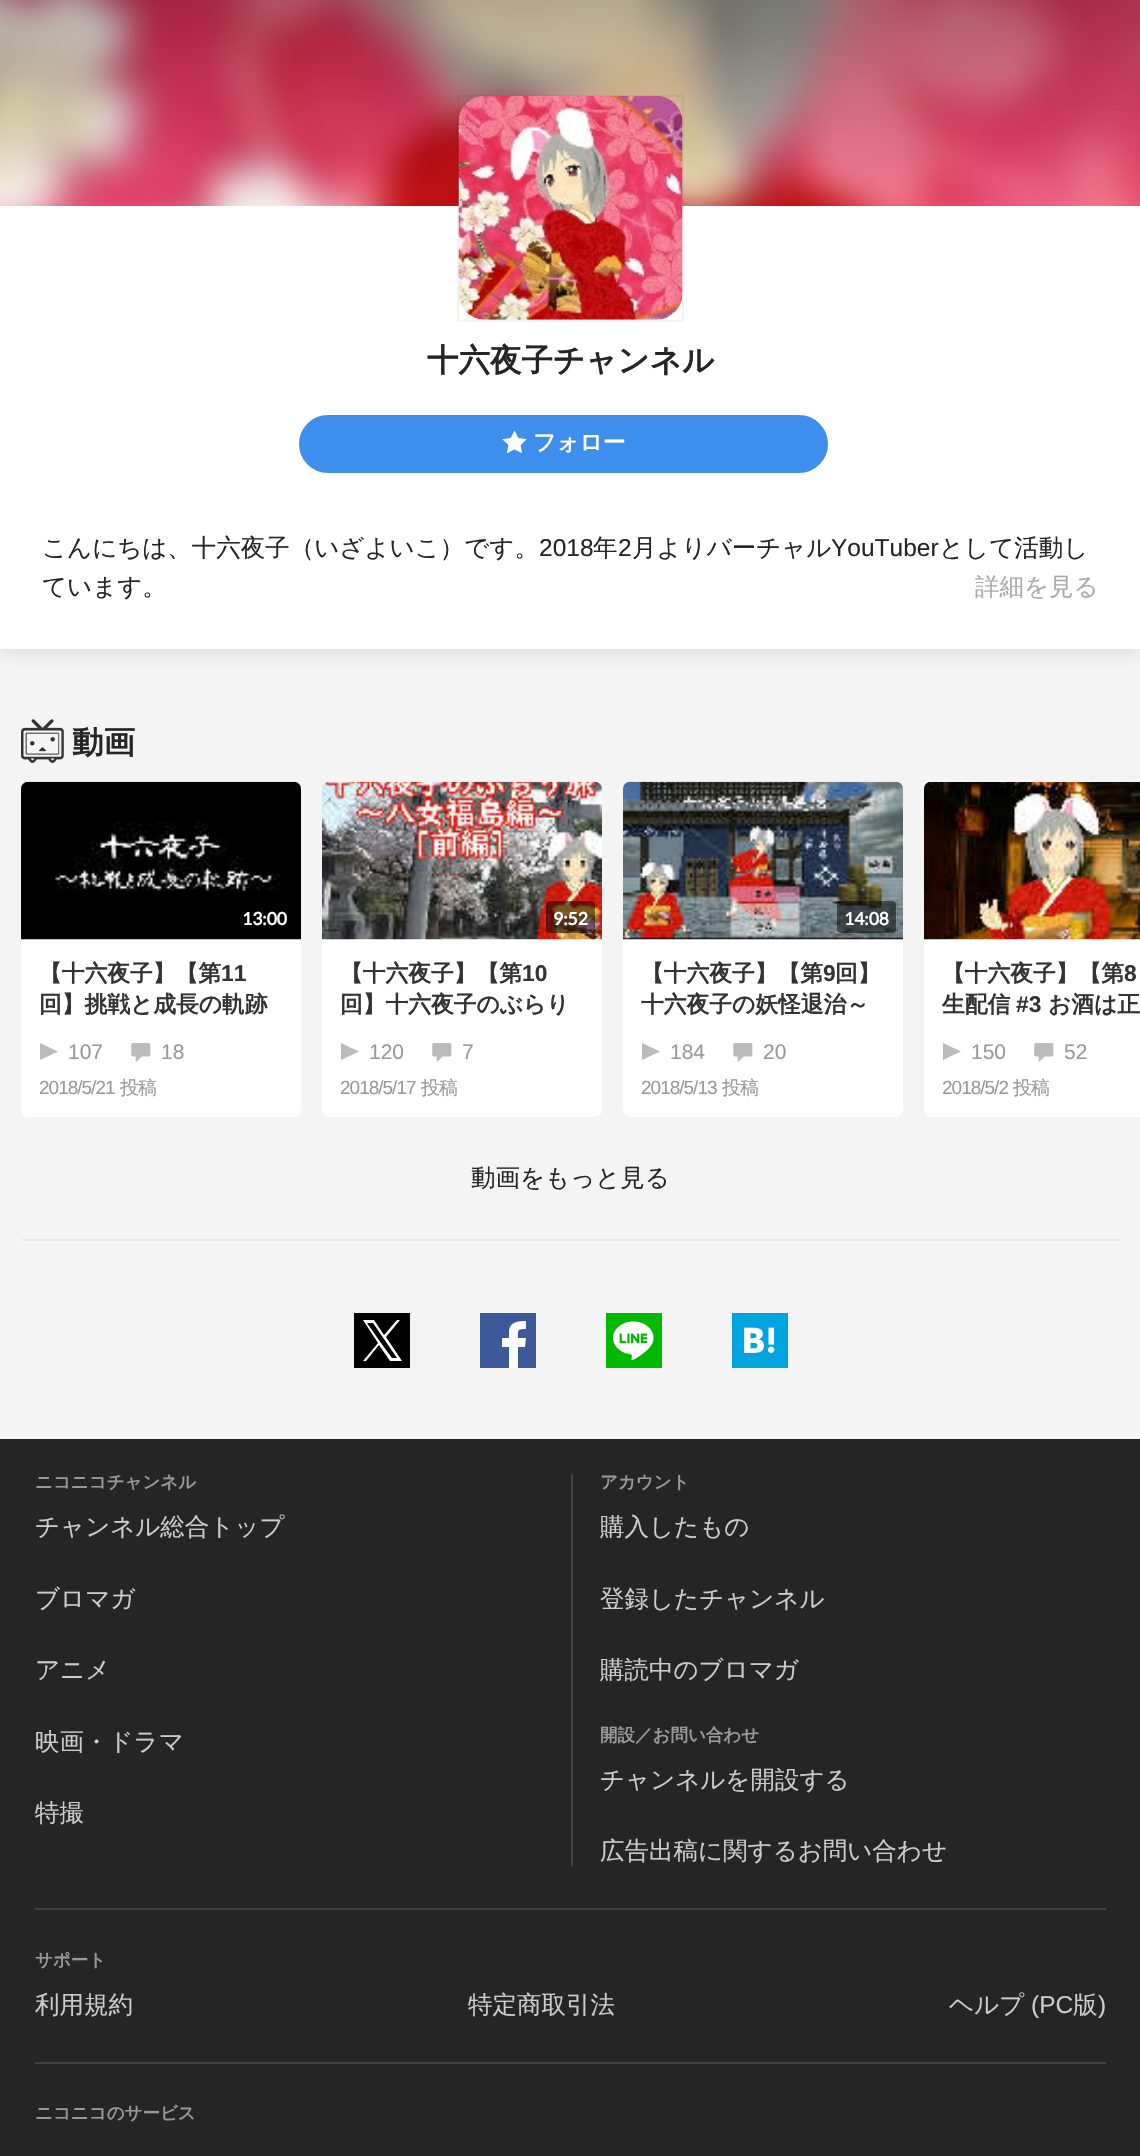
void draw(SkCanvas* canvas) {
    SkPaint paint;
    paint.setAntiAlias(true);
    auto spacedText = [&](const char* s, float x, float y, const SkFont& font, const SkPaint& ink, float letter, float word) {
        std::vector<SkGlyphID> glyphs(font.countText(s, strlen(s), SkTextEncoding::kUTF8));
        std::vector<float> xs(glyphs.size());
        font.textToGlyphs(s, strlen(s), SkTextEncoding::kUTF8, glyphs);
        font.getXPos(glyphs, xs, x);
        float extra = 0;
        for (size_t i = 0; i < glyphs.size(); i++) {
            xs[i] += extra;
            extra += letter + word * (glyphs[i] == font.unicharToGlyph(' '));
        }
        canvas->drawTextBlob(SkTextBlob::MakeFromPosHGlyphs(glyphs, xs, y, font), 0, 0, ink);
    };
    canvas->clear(0xFFF4F4F4);
    paint.setColor(0x337D7D7D);
    paint.setMaskFilter(SkMaskFilter::MakeBlur(kNormal_SkBlurStyle, 9));
    canvas->drawRect(SkRect::MakeXYWH(0, -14, 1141, 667), paint);
    paint.setMaskFilter(nullptr);
    paint.setColor(0xFFFFFFFF);
    canvas->drawRect(SkRect::MakeXYWH(0, 206, 1140, 443), paint);
    canvas->drawImageRect(SkImages::DeferredFromEncodedData(SkData::MakeFromFileName("img1.png")), SkRect::MakeXYWH(0, 0, 1140, 206), SkSamplingOptions());
    paint.setStyle(SkPaint::kStroke_Style);
    paint.setStrokeWidth(2);
    paint.setColor(0x0D000000);
    canvas->drawRect(SkRect::MakeXYWH(458, 96, 225, 225), paint);
    canvas->drawImageRect(SkImages::DeferredFromEncodedData(SkData::MakeFromFileName("img2.png")), SkRect::MakeXYWH(458, 95, 225, 225), SkSamplingOptions());
    SkFont font1(fontMgr->matchFamilyStyle("WenQuanYi Zen Hei", SkFontStyle::Bold()), 31.5f);
    font1.setSubpixel(true);
    paint.setStyle(SkPaint::kFill_Style);
    paint.setColor(0xFF252525);
    canvas->drawString("十六夜子チャンネル", 427, 371, font1, paint);
    paint.setColor(0xFF3E8EED);
    canvas->drawRoundRect(SkRect::MakeXYWH(301, 417, 525, 54), 27, 27, paint);
    paint.setStyle(SkPaint::kStroke_Style);
    paint.setStrokeWidth(4);
    canvas->drawRoundRect(SkRect::MakeXYWH(301, 417, 525, 54), 27, 27, paint);
    canvas->drawImageRect(SkImages::DeferredFromEncodedData(SkData::MakeFromFileName("img3.png")), SkRect::MakeXYWH(502, 431, 25, 23), SkSamplingOptions());
    SkFont font2(fontMgr->matchFamilyStyle("WenQuanYi Zen Hei", SkFontStyle::Bold()), 22.75f);
    font2.setSubpixel(true);
    paint.setStyle(SkPaint::kFill_Style);
    paint.setColor(0xFFFFFFFF);
    canvas->drawString("フォロー", 533, 450, font2, paint);
    SkFont font3(fontMgr->matchFamilyStyle("WenQuanYi Zen Hei", SkFontStyle(500, SkFontStyle::kNormal_Width, SkFontStyle::kUpright_Slant)), 24.5f);
    font3.setSubpixel(true);
    paint.setColor(0xFF252525);
    canvas->drawString("こんにちは、十六夜子（いざよいこ）です。", 42, 556, font3, paint);
    SkFont font4(fontMgr->matchFamilyStyle("Liberation Sans", SkFontStyle::Normal()), 24.5f);
    font4.setSubpixel(true);
    canvas->drawString("2018", 539, 556, font4, paint);
    canvas->drawString("年", 593, 556, font3, paint);
    canvas->drawString("2", 618, 556, font4, paint);
    canvas->drawString("月よりバーチャル", 632, 556, font3, paint);
    canvas->drawString("YouTuber", 831, 556, font4, paint);
    canvas->drawString("として活動し", 939, 556, font3, paint);
    canvas->drawString("ています。", 42, 595, font3, paint);
    paint.setColor(0xFFAAAAAA);
    canvas->drawString("詳細を見る", 975, 595, font3, paint);
    canvas->drawImageRect(SkImages::DeferredFromEncodedData(SkData::MakeFromFileName("img4.png")), SkRect::MakeXYWH(21, 719, 43, 44), SkSamplingOptions());
    paint.setColor(0xFF252525);
    canvas->drawString("動画", 72, 753, font1, paint);
    paint.setColor(0xFFFFFFFF);
    canvas->drawRoundRect(SkRect::MakeXYWH(21, 782, 280, 335), 7, 7, paint);
    canvas->drawImageRect(SkImages::DeferredFromEncodedData(SkData::MakeFromFileName("img5.png")), SkRect::MakeXYWH(21, 781, 280, 159), SkSamplingOptions());
    SkFont font5(fontMgr->matchFamilyStyle("Lato", SkFontStyle::Bold()), 17.5f);
    font5.setSubpixel(true);
    canvas->drawString("13:00", 242, 925, font5, paint);
    paint.setColor(0xFF333333);
    canvas->drawString("【十六夜子】【第", 39, 981, font2, paint);
    SkFont font6(fontMgr->matchFamilyStyle("Liberation Sans", SkFontStyle::Bold()), 22.75f);
    font6.setSubpixel(true);
    canvas->drawString("11", 221, 981, font6, paint);
    canvas->drawString("回】挑戦と成長の軌跡", 39, 1012, font2, paint);
    paint.setColor(0xFFBBBBBB);
    canvas->drawPath(SkPathBuilder(SkPathFillType::kEvenOdd).moveTo(40, 1043).lineTo(40, 1060).lineTo(58, 1051.5f).close().detach(), paint);
    SkFont font7(fontMgr->matchFamilyStyle("Liberation Sans", SkFontStyle::Normal()), 21);
    font7.setSubpixel(true);
    paint.setColor(0xFF999999);
    canvas->drawString("107", 68, 1059, font7, paint);
    canvas->drawImageRect(SkImages::DeferredFromEncodedData(SkData::MakeFromFileName("img6.png")), SkRect::MakeXYWH(131, 1043, 20, 19), SkSamplingOptions());
    canvas->drawString("18", 161, 1059, font7, paint);
    SkFont font8(fontMgr->matchFamilyStyle("Liberation Sans", SkFontStyle::Normal()), 19);
    font8.setSubpixel(true);
    spacedText("2018/5/21", 39, 1094, font8, paint, -1, 0);
    SkFont font9(fontMgr->matchFamilyStyle("WenQuanYi Zen Hei", SkFontStyle(500, SkFontStyle::kNormal_Width, SkFontStyle::kUpright_Slant)), 19);
    font9.setSubpixel(true);
    spacedText("投稿", 120, 1094, font9, paint, -1, 0);
    paint.setColor(0xFFFFFFFF);
    canvas->drawRoundRect(SkRect::MakeXYWH(322, 782, 280, 335), 7, 7, paint);
    canvas->drawImageRect(SkImages::DeferredFromEncodedData(SkData::MakeFromFileName("img7.png")), SkRect::MakeXYWH(322, 781, 280, 159), SkSamplingOptions());
    paint.setColor(0x80000000);
    canvas->drawRoundRect(SkRect::MakeXYWH(546, 901, 49, 32), 4, 4, paint);
    paint.setColor(0xFFFFFFFF);
    canvas->drawString("9:52", 553, 925, font5, paint);
    paint.setColor(0xFF333333);
    canvas->drawString("【十六夜子】【第", 340, 981, font2, paint);
    canvas->drawString("10", 522, 981, font6, paint);
    canvas->drawString("回】十六夜子のぶらり", 340, 1012, font2, paint);
    paint.setColor(0xFFBBBBBB);
    canvas->drawPath(SkPathBuilder(SkPathFillType::kEvenOdd).moveTo(341, 1043).lineTo(341, 1060).lineTo(359, 1051.5f).close().detach(), paint);
    paint.setColor(0xFF999999);
    canvas->drawString("120", 369, 1059, font7, paint);
    canvas->drawImageRect(SkImages::DeferredFromEncodedData(SkData::MakeFromFileName("img6.png")), SkRect::MakeXYWH(432, 1043, 20, 19), SkSamplingOptions());
    canvas->drawString("7", 462, 1059, font7, paint);
    spacedText("2018/5/17", 340, 1094, font8, paint, -1, 0);
    spacedText("投稿", 421, 1094, font9, paint, -1, 0);
    paint.setColor(0xFFFFFFFF);
    canvas->drawRoundRect(SkRect::MakeXYWH(623, 782, 280, 335), 7, 7, paint);
    canvas->drawImageRect(SkImages::DeferredFromEncodedData(SkData::MakeFromFileName("img8.png")), SkRect::MakeXYWH(623, 781, 280, 159), SkSamplingOptions());
    paint.setColor(0x80000000);
    canvas->drawRoundRect(SkRect::MakeXYWH(837, 901, 59, 32), 4, 4, paint);
    paint.setColor(0xFFFFFFFF);
    canvas->drawString("14:08", 844, 925, font5, paint);
    paint.setColor(0xFF333333);
    canvas->drawString("【十六夜子】【第", 641, 981, font2, paint);
    canvas->drawString("9", 823, 981, font6, paint);
    canvas->drawString("回】", 835, 981, font2, paint);
    canvas->drawString("十六夜子の妖怪退治～", 641, 1012, font2, paint);
    paint.setColor(0xFFBBBBBB);
    canvas->drawPath(SkPathBuilder(SkPathFillType::kEvenOdd).moveTo(642, 1043).lineTo(642, 1060).lineTo(660, 1051.5f).close().detach(), paint);
    paint.setColor(0xFF999999);
    canvas->drawString("184", 670, 1059, font7, paint);
    canvas->drawImageRect(SkImages::DeferredFromEncodedData(SkData::MakeFromFileName("img6.png")), SkRect::MakeXYWH(733, 1043, 20, 19), SkSamplingOptions());
    canvas->drawString("20", 763, 1059, font7, paint);
    spacedText("2018/5/13", 641, 1094, font8, paint, -1, 0);
    spacedText("投稿", 722, 1094, font9, paint, -1, 0);
    paint.setColor(0xFFFFFFFF);
    canvas->drawPath(SkPathBuilder().moveTo(931, 782).lineTo(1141, 782).lineTo(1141, 1117).lineTo(931, 1117).cubicTo(927, 1117, 924, 1114, 924, 1110).lineTo(924, 789).cubicTo(924, 785, 927, 782, 931, 782).close().detach(), paint);
    canvas->drawImageRect(SkImages::DeferredFromEncodedData(SkData::MakeFromFileName("img9.png")), SkRect::MakeXYWH(924, 782, 216, 158), SkSamplingOptions());
    paint.setColor(0x80000000);
    canvas->drawPath(SkPathBuilder().moveTo(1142, 901).lineTo(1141, 901).lineTo(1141, 933).lineTo(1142, 933).cubicTo(1140, 933, 1138, 931, 1138, 929).lineTo(1138, 905).cubicTo(1138, 903, 1140, 901, 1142, 901).close().detach(), paint);
    paint.setColor(0xFF333333);
    canvas->drawString("【十六夜子】【第", 942, 981, font2, paint);
    canvas->drawString("8", 1124, 981, font6, paint);
    canvas->drawString("生配信", 942, 1012, font2, paint);
    canvas->drawString("#3", 1016, 1012, font6, paint);
    canvas->drawString("お酒は正", 1048, 1012, font2, paint);
    paint.setColor(0xFFBBBBBB);
    canvas->drawPath(SkPathBuilder(SkPathFillType::kEvenOdd).moveTo(943, 1043).lineTo(943, 1060).lineTo(961, 1051.5f).close().detach(), paint);
    paint.setColor(0xFF999999);
    canvas->drawString("150", 971, 1059, font7, paint);
    canvas->drawImageRect(SkImages::DeferredFromEncodedData(SkData::MakeFromFileName("img6.png")), SkRect::MakeXYWH(1034, 1043, 20, 19), SkSamplingOptions());
    canvas->drawString("52", 1064, 1059, font7, paint);
    spacedText("2018/5/2", 942, 1094, font8, paint, -1, 0);
    spacedText("投稿", 1013, 1094, font9, paint, -1, 0);
    paint.setColor(0xFF252525);
    canvas->drawString("動画をもっと見る", 471, 1186, font3, paint);
    paint.setColor(0xFFE9E9E9);
    canvas->drawRect(SkRect::MakeXYWH(21, 1239, 1099, 2), paint);
    paint.setColor(0xFFF8F8F8);
    canvas->drawRect(SkRect::MakeXYWH(21, 1241, 1099, 2), paint);
    paint.setColor(0xFF000000);
    canvas->drawRect(SkRect::MakeXYWH(354, 1313, 56, 55), paint);
    paint.setColor(0xFFFFFFFF);
    canvas->drawPath(SkPathBuilder().moveTo(386, 1337).lineTo(400, 1320).lineTo(397, 1320).lineTo(384, 1335).lineTo(374, 1320).lineTo(363, 1320).lineTo(378, 1343).lineTo(363, 1361).lineTo(366, 1361).lineTo(379, 1345).lineTo(390, 1361).lineTo(402, 1361).close().moveTo(381, 1343).lineTo(367, 1323).lineTo(373, 1323).lineTo(397, 1358).lineTo(392, 1358).close().detach(), paint);
    paint.setColor(0xFF3C5A99);
    canvas->drawRect(SkRect::MakeXYWH(480, 1313, 56, 55), paint);
    paint.setColor(0xFFFEFEFE);
    canvas->drawPath(SkPathBuilder(SkPathFillType::kEvenOdd).moveTo(518, 1368).lineTo(518, 1347).lineTo(525, 1347).lineTo(526, 1338).lineTo(518, 1338).cubicTo(518, 1330, 517, 1329, 526, 1329).lineTo(526, 1321).cubicTo(519, 1321, 511, 1321, 509, 1330).lineTo(509, 1338).lineTo(502, 1338).lineTo(502, 1347).lineTo(509, 1347).lineTo(509, 1368).close().detach(), paint);
    canvas->drawImageRect(SkImages::DeferredFromEncodedData(SkData::MakeFromFileName("img10.png")), SkRect::MakeXYWH(606, 1313, 56, 55), SkSamplingOptions());
    canvas->drawImageRect(SkImages::DeferredFromEncodedData(SkData::MakeFromFileName("img11.png")), SkRect::MakeXYWH(732, 1313, 56, 55), SkSamplingOptions());
    paint.setColor(0xFF252525);
    canvas->drawRect(SkRect::MakeXYWH(0, 1439, 1140, 717), paint);
    SkFont font10(fontMgr->matchFamilyStyle("WenQuanYi Zen Hei", SkFontStyle::Bold()), 17.5f);
    font10.setSubpixel(true);
    paint.setColor(0xFF999999);
    canvas->drawString("ニコニコチャンネル", 35, 1488, font10, paint);
    paint.setColor(0xFFCCCCCC);
    canvas->drawString("チャンネル総合トップ", 35, 1535, font3, paint);
    canvas->drawString("ブロマガ", 35, 1607, font3, paint);
    canvas->drawString("アニメ", 35, 1678, font3, paint);
    canvas->drawString("映画・ドラマ", 35, 1750, font3, paint);
    canvas->drawString("特撮", 35, 1821, font3, paint);
    paint.setColor(0xFF444444);
    canvas->drawRect(SkRect::MakeXYWH(571, 1474, 2, 392), paint);
    paint.setColor(0xFF999999);
    canvas->drawString("アカウント", 600, 1488, font10, paint);
    paint.setColor(0xFFCCCCCC);
    canvas->drawString("購入したもの", 600, 1535, font3, paint);
    canvas->drawString("登録したチャンネル", 600, 1607, font3, paint);
    canvas->drawString("購読中のブロマガ", 600, 1678, font3, paint);
    paint.setColor(0xFF999999);
    canvas->drawString("開設／お問い合わせ", 600, 1741, font10, paint);
    paint.setColor(0xFFCCCCCC);
    canvas->drawString("チャンネルを開設する", 600, 1788, font3, paint);
    canvas->drawString("広告出稿に関するお問い合わせ", 600, 1859, font3, paint);
    paint.setColor(0xFF444444);
    canvas->drawRect(SkRect::MakeXYWH(35, 1908, 1071, 2), paint);
    paint.setColor(0xFF999999);
    canvas->drawString("サポート", 35, 1966, font10, paint);
    paint.setColor(0xFFCCCCCC);
    canvas->drawString("利用規約", 35, 2013, font3, paint);
    canvas->drawString("特定商取引法", 468, 2013, font3, paint);
    canvas->drawString("ヘルプ", 949, 2013, font3, paint);
    canvas->drawString("(PC", 1031, 2013, font4, paint);
    canvas->drawString("版", 1073, 2013, font3, paint);
    canvas->drawString(")", 1098, 2013, font4, paint);
    paint.setColor(0xFF444444);
    canvas->drawRect(SkRect::MakeXYWH(35, 2062, 1071, 2), paint);
    paint.setColor(0xFF999999);
    canvas->drawString("ニコニコのサービス", 35, 2119, font10, paint);
}
